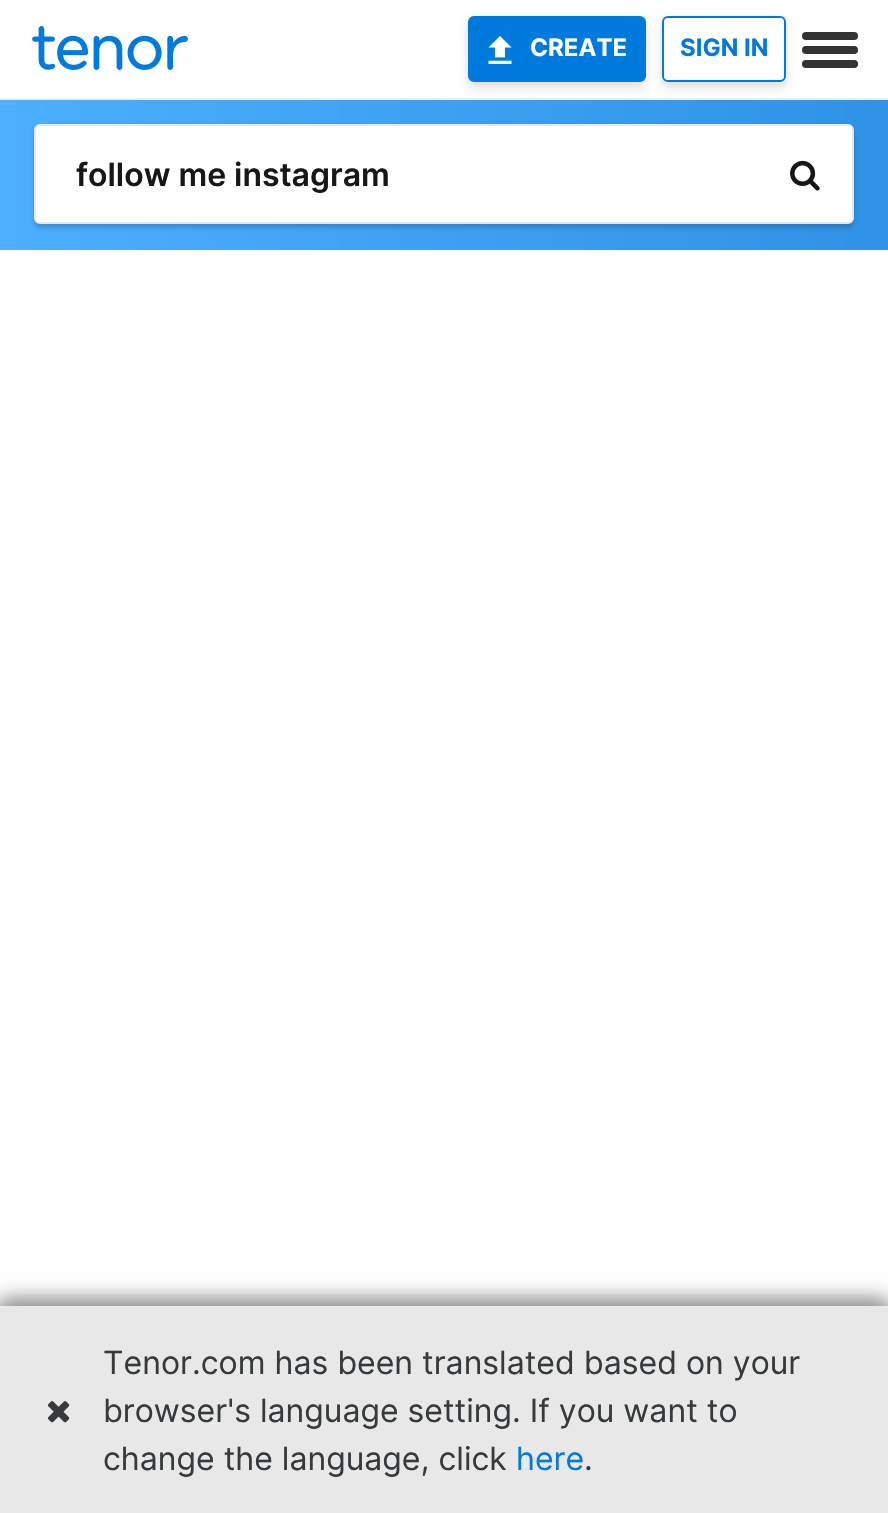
void draw(SkCanvas* canvas) {
    SkPaint paint;
    paint.setAntiAlias(true);
    canvas->clear(0xFFFFFFFF);
    paint.setColor(0xFFEBF2F7);
    canvas->drawRect(SkRect::MakeXYWH(0, 98, 888, 2), paint);
    canvas->drawImageRect(SkImages::DeferredFromEncodedData(SkData::MakeFromFileName("img1.png")), SkRect::MakeXYWH(32, 26, 156, 44), SkSamplingOptions());
    paint.setColor(0x1C53535C);
    paint.setMaskFilter(SkMaskFilter::MakeBlur(kNormal_SkBlurStyle, 6));
    canvas->drawRoundRect(SkRect::MakeXYWH(468, 24, 178, 66), 6, 6, paint);
    paint.setMaskFilter(nullptr);
    paint.setColor(0x14000000);
    paint.setMaskFilter(SkMaskFilter::MakeBlur(kNormal_SkBlurStyle, 3));
    canvas->drawRoundRect(SkRect::MakeXYWH(468, 18, 178, 66), 6, 6, paint);
    paint.setMaskFilter(nullptr);
    paint.setColor(0xFF007ADD);
    canvas->drawRoundRect(SkRect::MakeXYWH(469, 17, 176, 64), 5, 5, paint);
    paint.setStyle(SkPaint::kStroke_Style);
    paint.setStrokeWidth(2);
    canvas->drawRoundRect(SkRect::MakeXYWH(469, 17, 176, 64), 5, 5, paint);
    canvas->drawImageRect(SkImages::DeferredFromEncodedData(SkData::MakeFromFileName("img2.png")), SkRect::MakeXYWH(488, 36, 24, 28), SkSamplingOptions());
    SkFont font1(fontMgr->matchFamilyStyle("Inter", SkFontStyle::Bold()), 24);
    font1.setSubpixel(true);
    paint.setStyle(SkPaint::kFill_Style);
    paint.setColor(0xFFFFFFFF);
    canvas->drawString("CREATE", 530, 56, font1, paint);
    paint.setColor(0x1C53535C);
    paint.setMaskFilter(SkMaskFilter::MakeBlur(kNormal_SkBlurStyle, 6));
    canvas->drawRoundRect(SkRect::MakeXYWH(662, 24, 124, 66), 6, 6, paint);
    paint.setMaskFilter(nullptr);
    paint.setColor(0x14000000);
    paint.setMaskFilter(SkMaskFilter::MakeBlur(kNormal_SkBlurStyle, 3));
    canvas->drawRoundRect(SkRect::MakeXYWH(662, 18, 124, 66), 6, 6, paint);
    paint.setMaskFilter(nullptr);
    paint.setColor(0xFFFFFFFF);
    canvas->drawRoundRect(SkRect::MakeXYWH(663, 17, 122, 64), 5, 5, paint);
    paint.setStyle(SkPaint::kStroke_Style);
    paint.setColor(0xFF007ADD);
    canvas->drawRoundRect(SkRect::MakeXYWH(663, 17, 122, 64), 5, 5, paint);
    paint.setStyle(SkPaint::kFill_Style);
    canvas->drawString("SIGN IN", 680, 56, font1, paint);
    paint.setColor(0xFF333333);
    canvas->drawRoundRect(SkRect::MakeXYWH(802, 46, 56, 8), 4, 4, paint);
    canvas->drawRoundRect(SkRect::MakeXYWH(802, 32, 56, 8), 4, 4, paint);
    canvas->drawRoundRect(SkRect::MakeXYWH(802, 60, 56, 8), 4, 4, paint);
    {
        const SkColor colors[] = {0xFF4CAFFF, 0xFF2E93E6};
        const float stops[] = {0, 1};
        const SkPoint ends[] = {{0, 175}, {888, 175}};
        paint.setShader(SkGradientShader::MakeLinear(ends, colors, stops, 2, SkTileMode::kClamp));
        paint.setAlpha(255);
    }
    canvas->drawRect(SkRect::MakeXYWH(0, 100, 888, 150), paint);
    paint.setShader(nullptr);
    paint.setColor(0x14000000);
    paint.setMaskFilter(SkMaskFilter::MakeBlur(kNormal_SkBlurStyle, 1));
    canvas->drawRoundRect(SkRect::MakeXYWH(34, 124, 820, 100), 6, 6, paint);
    paint.setMaskFilter(nullptr);
    paint.setColor(0x29000000);
    paint.setMaskFilter(SkMaskFilter::MakeBlur(kNormal_SkBlurStyle, 2));
    canvas->drawRoundRect(SkRect::MakeXYWH(34, 128, 820, 100), 6, 6, paint);
    paint.setMaskFilter(nullptr);
    paint.setColor(0xFFFFFFFF);
    canvas->drawRoundRect(SkRect::MakeXYWH(35, 125, 818, 98), 5, 5, paint);
    paint.setStyle(SkPaint::kStroke_Style);
    paint.setColor(0xFFE8E8E8);
    canvas->drawRoundRect(SkRect::MakeXYWH(35, 125, 818, 98), 5, 5, paint);
    SkFont font2(fontMgr->matchFamilyStyle("Inter", SkFontStyle(600, SkFontStyle::kNormal_Width, SkFontStyle::kUpright_Slant)), 32);
    font2.setSubpixel(true);
    paint.setStyle(SkPaint::kFill_Style);
    paint.setColor(0xFF171717);
    canvas->drawString("follow me instagram", 76, 186, font2, paint);
    canvas->drawImageRect(SkImages::DeferredFromEncodedData(SkData::MakeFromFileName("img3.png")), SkRect::MakeXYWH(790, 160, 30, 31), SkSamplingOptions());
    paint.setColor(0xFF999999);
    paint.setMaskFilter(SkMaskFilter::MakeBlur(kNormal_SkBlurStyle, 10));
    canvas->drawRect(SkRect::MakeXYWH(0, 1302, 888, 208), paint);
    paint.setMaskFilter(nullptr);
    paint.setMaskFilter(SkMaskFilter::MakeBlur(kNormal_SkBlurStyle, 10));
    canvas->drawRect(SkRect::MakeXYWH(0, 1302, 888, 208), paint);
    paint.setMaskFilter(nullptr);
    paint.setColor(0xFFE8E8E8);
    canvas->drawRect(SkRect::MakeXYWH(0, 1306, 888, 207), paint);
    canvas->drawImageRect(SkImages::DeferredFromEncodedData(SkData::MakeFromFileName("img4.png")), SkRect::MakeXYWH(48, 1401, 22, 22), SkSamplingOptions());
    SkFont font3(fontMgr->matchFamilyStyle("Inter", SkFontStyle::Normal()), 32);
    font3.setSubpixel(true);
    paint.setColor(0xFF373A3C);
    canvas->drawString("Tenor.com has been translated based on your", 103, 1374, font3, paint);
    canvas->drawString("browser's language setting. If you want to", 103, 1422, font3, paint);
    canvas->drawString("change the language, click", 103, 1470, font3, paint);
    paint.setColor(0xFF007ADD);
    canvas->drawString("here", 516, 1470, font3, paint);
    paint.setColor(0xFF373A3C);
    canvas->drawString(".", 584, 1470, font3, paint);
}
